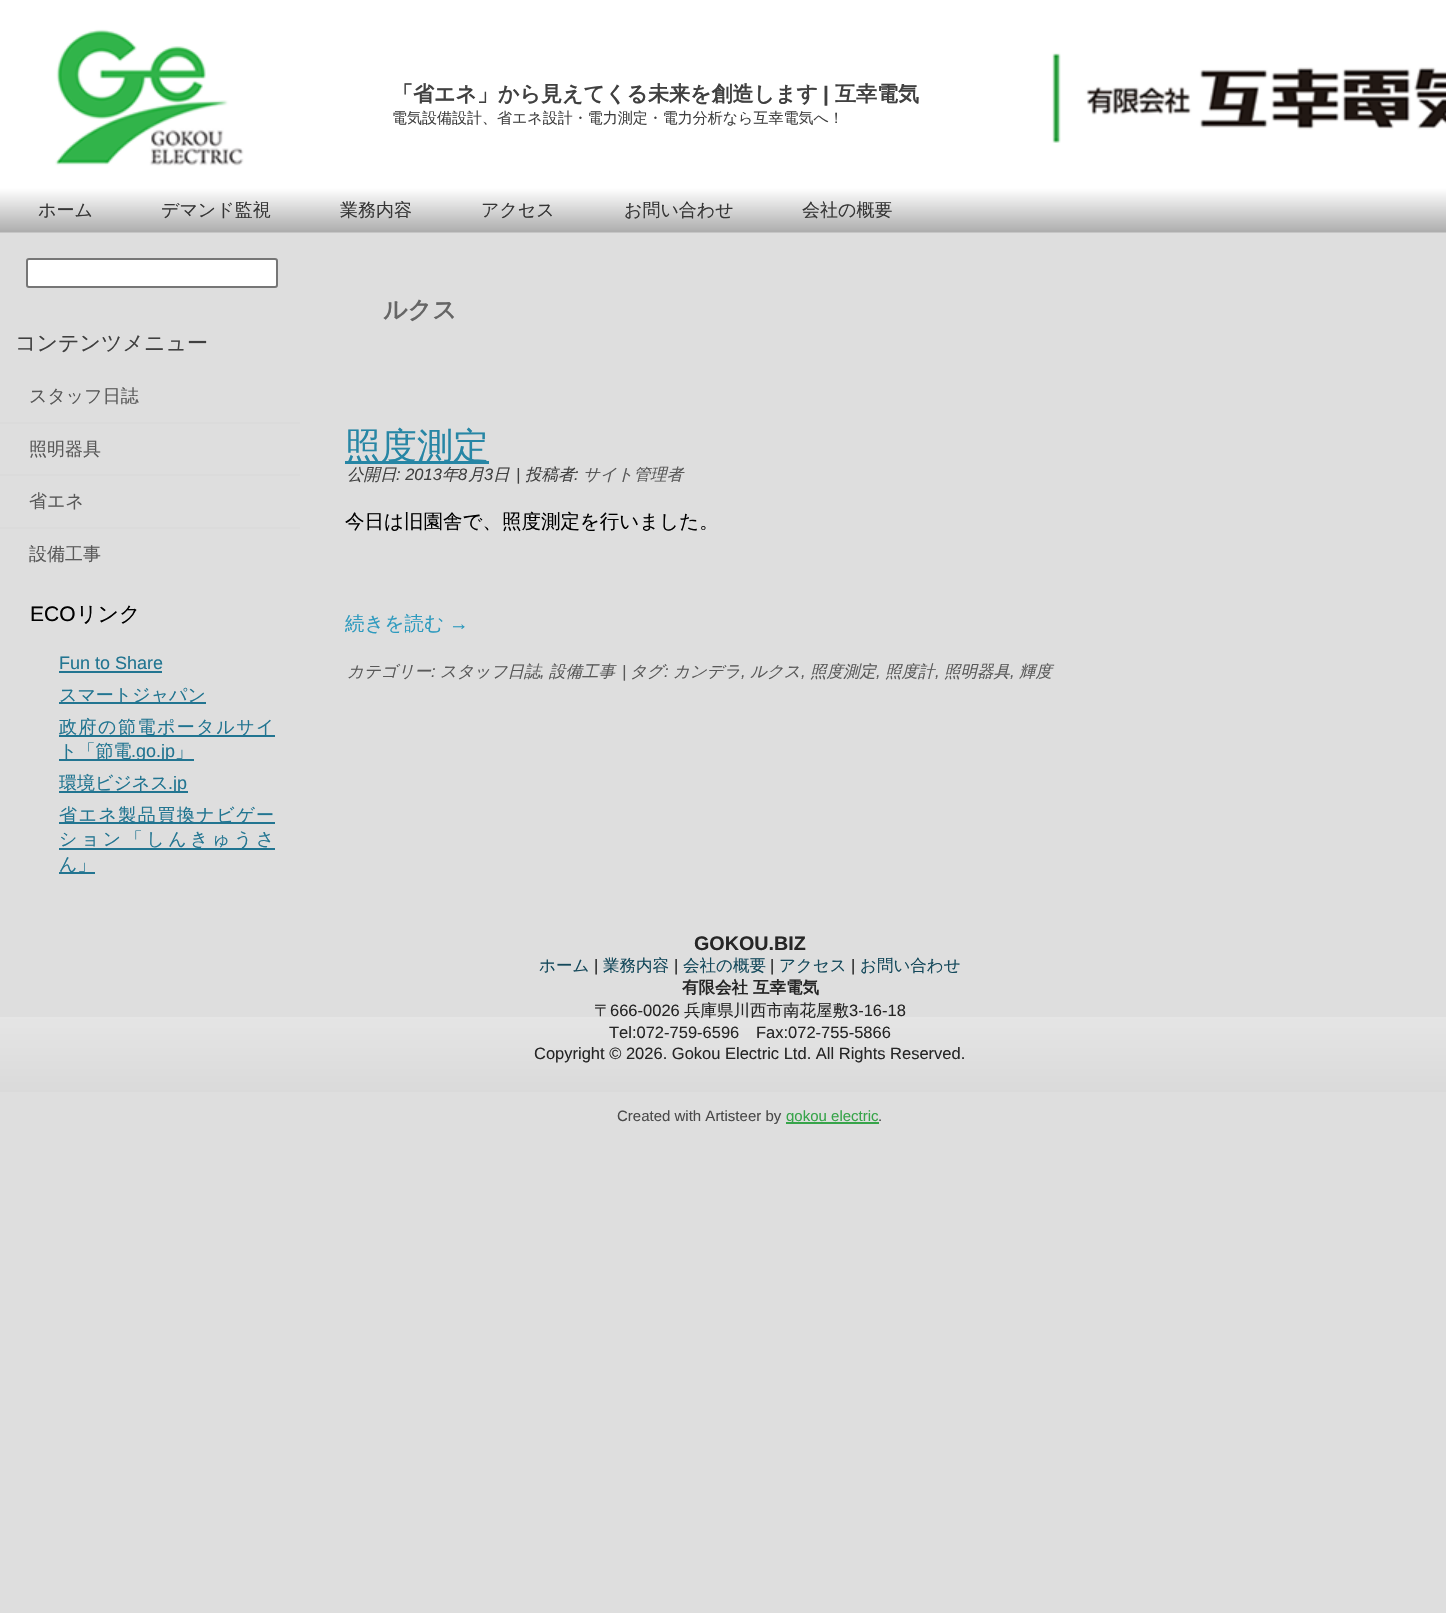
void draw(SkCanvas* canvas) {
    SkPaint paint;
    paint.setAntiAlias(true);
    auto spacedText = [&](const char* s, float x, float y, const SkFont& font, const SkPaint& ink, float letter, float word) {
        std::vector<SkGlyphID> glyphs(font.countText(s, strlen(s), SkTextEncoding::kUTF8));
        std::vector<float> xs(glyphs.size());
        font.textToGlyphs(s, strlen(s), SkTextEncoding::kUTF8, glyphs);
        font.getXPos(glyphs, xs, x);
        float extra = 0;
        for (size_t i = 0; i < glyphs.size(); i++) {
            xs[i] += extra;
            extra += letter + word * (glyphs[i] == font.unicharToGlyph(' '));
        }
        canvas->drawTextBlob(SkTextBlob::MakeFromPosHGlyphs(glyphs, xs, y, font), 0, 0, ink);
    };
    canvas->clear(0xFFDEDEDE);
    paint.setColor(0xFFFFFFFF);
    canvas->drawRect(SkRect::MakeXYWH(0, 0, 1446, 188), paint);
    canvas->drawImageRect(SkImages::DeferredFromEncodedData(SkData::MakeFromFileName("img1.png")), SkRect::MakeXYWH(55, 29, 1391, 137), SkSamplingOptions());
    SkFont font1(fontMgr->matchFamilyStyle("WenQuanYi Zen Hei", SkFontStyle::Bold()), 21);
    font1.setSubpixel(true);
    paint.setColor(0xFF404040);
    canvas->drawString("「省エネ」から見えてくる未来を創造します", 392, 101, font1, paint);
    SkFont font2(fontMgr->matchFamilyStyle("Liberation Sans", SkFontStyle::Bold()), 21);
    font2.setSubpixel(true);
    canvas->drawString("|", 823, 101, font2, paint);
    canvas->drawString("互幸電気", 835, 101, font1, paint);
    SkFont font3(fontMgr->matchFamilyStyle("WenQuanYi Zen Hei", SkFontStyle(500, SkFontStyle::kNormal_Width, SkFontStyle::kUpright_Slant)), 15);
    font3.setSubpixel(true);
    canvas->drawString("電気設備設計、省エネ設計・電力測定・電力分析なら互幸電気へ！", 392, 123, font3, paint);
    canvas->drawImageRect(SkImages::DeferredFromEncodedData(SkData::MakeFromFileName("img2.png")), SkRect::MakeXYWH(0, 188, 1446, 45), SkSamplingOptions());
    SkFont font4(fontMgr->matchFamilyStyle("WenQuanYi Zen Hei", SkFontStyle(500, SkFontStyle::kNormal_Width, SkFontStyle::kUpright_Slant)), 18);
    font4.setSubpixel(true);
    paint.setColor(0xFF363636);
    canvas->drawString("ホーム", 38, 216, font4, paint);
    canvas->drawString("デマンド監視", 161, 216, font4, paint);
    canvas->drawString("業務内容", 340, 216, font4, paint);
    canvas->drawString("アクセス", 481, 216, font4, paint);
    canvas->drawString("お問い合わせ", 624, 216, font4, paint);
    canvas->drawString("会社の概要", 802, 216, font4, paint);
    paint.setColor(0xFFFFFFFF);
    canvas->drawRoundRect(SkRect::MakeXYWH(27, 259, 250, 28), 2, 2, paint);
    paint.setStyle(SkPaint::kStroke_Style);
    paint.setStrokeWidth(2);
    paint.setColor(0xFF767676);
    canvas->drawRoundRect(SkRect::MakeXYWH(27, 259, 250, 28), 2, 2, paint);
    SkFont font5(fontMgr->matchFamilyStyle("WenQuanYi Zen Hei", SkFontStyle(500, SkFontStyle::kNormal_Width, SkFontStyle::kUpright_Slant)), 21);
    font5.setSubpixel(true);
    paint.setStyle(SkPaint::kFill_Style);
    paint.setColor(0xFF404040);
    canvas->drawString("コンテンツメニュー", 15, 350, font5, paint);
    paint.setColor(0xFF595959);
    canvas->drawString("スタッフ日誌", 29, 402, font4, paint);
    paint.setColor(0xFFDBDBDB);
    canvas->drawRect(SkRect::MakeXYWH(0, 422, 300, 2), paint);
    paint.setColor(0xFF595959);
    canvas->drawString("照明器具", 29, 455, font4, paint);
    paint.setColor(0xFFDBDBDB);
    canvas->drawRect(SkRect::MakeXYWH(0, 474, 300, 2), paint);
    paint.setColor(0xFF595959);
    canvas->drawString("省エネ", 29, 507, font4, paint);
    paint.setColor(0xFFDBDBDB);
    canvas->drawRect(SkRect::MakeXYWH(0, 527, 300, 2), paint);
    paint.setColor(0xFF595959);
    canvas->drawString("設備工事", 29, 560, font4, paint);
    SkFont font6(fontMgr->matchFamilyStyle("Liberation Sans", SkFontStyle::Normal()), 21);
    font6.setSubpixel(true);
    paint.setColor(0xFF000000);
    canvas->drawString("ECO", 30, 621, font6, paint);
    canvas->drawString("リンク", 76, 621, font5, paint);
    SkFont font7(fontMgr->matchFamilyStyle("Liberation Sans", SkFontStyle::Normal()), 18);
    font7.setSubpixel(true);
    paint.setColor(0xFF227591);
    canvas->drawString("Fun to Share", 59, 669, font7, paint);
    canvas->drawRect(SkRect::MakeXYWH(59, 671, 103, 2), paint);
    canvas->drawRect(SkRect::MakeXYWH(59, 702, 147, 2), paint);
    canvas->drawString("スマートジャパン", 59, 701, font4, paint);
    canvas->drawRect(SkRect::MakeXYWH(59, 735, 216, 2), paint);
    spacedText("政府の節電ポータルサイ", 59, 733, font4, paint, 1.5f, 0);
    canvas->drawRect(SkRect::MakeXYWH(59, 759, 135, 2), paint);
    canvas->drawString("ト「節電", 59, 757, font4, paint);
    canvas->drawString(".go.jp", 131, 757, font7, paint);
    canvas->drawString("」", 175, 757, font4, paint);
    canvas->drawRect(SkRect::MakeXYWH(59, 791, 129, 2), paint);
    canvas->drawString("環境ビジネス", 59, 789, font4, paint);
    canvas->drawString(".jp", 168, 789, font7, paint);
    canvas->drawRect(SkRect::MakeXYWH(59, 822, 216, 2), paint);
    spacedText("省エネ製品買換ナビゲー", 59, 821, font4, paint, 1.5f, 0);
    canvas->drawRect(SkRect::MakeXYWH(59, 848, 216, 2), paint);
    spacedText("ション「しんきゅうさ", 59, 845, font4, paint, 3.5f, 0);
    canvas->drawRect(SkRect::MakeXYWH(59, 872, 36, 2), paint);
    canvas->drawString("ん」", 59, 870, font4, paint);
    SkFont font8(fontMgr->matchFamilyStyle("WenQuanYi Zen Hei", SkFontStyle::Bold()), 24);
    font8.setSubpixel(true);
    paint.setColor(0xFF666666);
    canvas->drawString("ルクス", 383, 318, font8, paint);
    paint.setColor(0xFF2786A5);
    canvas->drawRect(SkRect::MakeXYWH(345, 461, 144, 3), paint);
    SkFont font9(fontMgr->matchFamilyStyle("WenQuanYi Zen Hei", SkFontStyle(500, SkFontStyle::kNormal_Width, SkFontStyle::kUpright_Slant)), 36);
    font9.setSubpixel(true);
    canvas->drawString("照度測定", 345, 458, font9, paint);
    SkFont font10(fontMgr->matchFamilyStyle("WenQuanYi Zen Hei", SkFontStyle(500, SkFontStyle::kNormal_Width, SkFontStyle::kItalic_Slant)), 16.5f);
    font10.setSubpixel(true);
    paint.setColor(0xFF404040);
    canvas->drawString("公開日", 347, 480, font10, paint);
    SkFont font11(fontMgr->matchFamilyStyle("Liberation Sans", SkFontStyle::Italic()), 16.5f);
    font11.setSubpixel(true);
    canvas->drawString(": 2013", 396, 480, font11, paint);
    canvas->drawString("年", 442, 480, font10, paint);
    canvas->drawString("8", 458, 480, font11, paint);
    canvas->drawString("月", 468, 480, font10, paint);
    canvas->drawString("3", 484, 480, font11, paint);
    canvas->drawString("日", 493, 480, font10, paint);
    canvas->drawString("|", 516, 480, font11, paint);
    canvas->drawString("投稿者", 525, 480, font10, paint);
    canvas->drawString(":", 574, 480, font11, paint);
    paint.setColor(0xFF595959);
    canvas->drawString("サイト管理者", 583, 480, font10, paint);
    SkFont font12(fontMgr->matchFamilyStyle("WenQuanYi Zen Hei", SkFontStyle(500, SkFontStyle::kNormal_Width, SkFontStyle::kUpright_Slant)), 19.5f);
    font12.setSubpixel(true);
    paint.setColor(0xFF000000);
    canvas->drawString("今日は旧園舎で、照度測定を行いました。", 345, 528, font12, paint);
    paint.setColor(0xFF2D9ABE);
    canvas->drawString("続きを読む", 345, 630, font12, paint);
    SkFont font13(fontMgr->matchFamilyStyle("Liberation Sans", SkFontStyle::Normal()), 19.5f);
    font13.setSubpixel(true);
    canvas->drawString("→", 449, 630, font13, paint);
    paint.setColor(0xFF595959);
    canvas->drawString("カテゴリー", 347, 677, font10, paint);
    canvas->drawString(":", 431, 677, font11, paint);
    canvas->drawString("スタッフ日誌", 440, 677, font10, paint);
    canvas->drawString("設備工事", 549, 677, font10, paint);
    canvas->drawString(",", 540, 677, font11, paint);
    canvas->drawString("|", 622, 677, font11, paint);
    canvas->drawString("タグ", 630, 677, font10, paint);
    canvas->drawString("カンデラ", 673, 677, font10, paint);
    canvas->drawString("ルクス", 750, 677, font10, paint);
    canvas->drawString("照度測定", 810, 677, font10, paint);
    canvas->drawString("照度計", 885, 677, font10, paint);
    canvas->drawString("照明器具", 944, 677, font10, paint);
    canvas->drawString("輝度", 1019, 677, font10, paint);
    canvas->drawString(":", 664, 677, font11, paint);
    canvas->drawString(",", 741, 677, font11, paint);
    canvas->drawString(",", 801, 677, font11, paint);
    canvas->drawString(",", 876, 677, font11, paint);
    canvas->drawString(",", 935, 677, font11, paint);
    canvas->drawString(",", 1010, 677, font11, paint);
    SkFont font14(fontMgr->matchFamilyStyle("Liberation Sans", SkFontStyle::Bold()), 19.75f);
    font14.setSubpixel(true);
    paint.setColor(0xFF262626);
    canvas->drawString("GOKOU.BIZ", 694, 950, font14, paint);
    SkFont font15(fontMgr->matchFamilyStyle("WenQuanYi Zen Hei", SkFontStyle(500, SkFontStyle::kNormal_Width, SkFontStyle::kUpright_Slant)), 16.5f);
    font15.setSubpixel(true);
    paint.setColor(0xFF15495B);
    canvas->drawString("ホーム", 539, 971, font15, paint);
    SkFont font16(fontMgr->matchFamilyStyle("Liberation Sans", SkFontStyle::Normal()), 16.5f);
    font16.setSubpixel(true);
    paint.setColor(0xFF262626);
    canvas->drawString("|", 594, 971, font16, paint);
    paint.setColor(0xFF15495B);
    canvas->drawString("業務内容", 603, 971, font15, paint);
    paint.setColor(0xFF262626);
    canvas->drawString("|", 674, 971, font16, paint);
    paint.setColor(0xFF15495B);
    canvas->drawString("会社の概要", 683, 971, font15, paint);
    paint.setColor(0xFF262626);
    canvas->drawString("|", 770, 971, font16, paint);
    paint.setColor(0xFF15495B);
    canvas->drawString("アクセス", 779, 971, font15, paint);
    paint.setColor(0xFF262626);
    canvas->drawString("|", 851, 971, font16, paint);
    paint.setColor(0xFF15495B);
    canvas->drawString("お問い合わせ", 860, 971, font15, paint);
    SkFont font17(fontMgr->matchFamilyStyle("WenQuanYi Zen Hei", SkFontStyle::Bold()), 16.5f);
    font17.setSubpixel(true);
    paint.setColor(0xFF262626);
    canvas->drawString("有限会社 互幸電気", 682, 993, font17, paint);
    canvas->drawString("〒", 594, 1016, font15, paint);
    canvas->drawString("666-0026", 610, 1016, font16, paint);
    canvas->drawImageRect(SkImages::DeferredFromEncodedData(SkData::MakeFromFileName("img3.png")), SkRect::MakeXYWH(0, 1017, 1446, 75), SkSamplingOptions());
    canvas->drawString("兵庫県川西市南花屋敷", 684, 1016, font15, paint);
    canvas->drawString("3-16-18", 849, 1016, font16, paint);
    canvas->drawString("Tel:072-759-6596", 609, 1038, font16, paint);
    canvas->drawString("Fax:072-755-5866", 756, 1038, font16, paint);
    canvas->drawString("Copyright © 2026. Gokou Electric Ltd. All Rights Reserved.", 534, 1059, font16, paint);
    SkFont font18(fontMgr->matchFamilyStyle("Liberation Sans", SkFontStyle::Normal()), 15);
    font18.setSubpixel(true);
    paint.setColor(0xFF4A4A4A);
    canvas->drawString("Created with Artisteer by", 617, 1121, font18, paint);
    paint.setColor(0xFF37A44A);
    canvas->drawRect(SkRect::MakeXYWH(786, 1122, 93, 2), paint);
    canvas->drawString("gokou electric", 786, 1121, font18, paint);
    paint.setColor(0xFF4A4A4A);
    canvas->drawString(".", 878, 1121, font18, paint);
}
